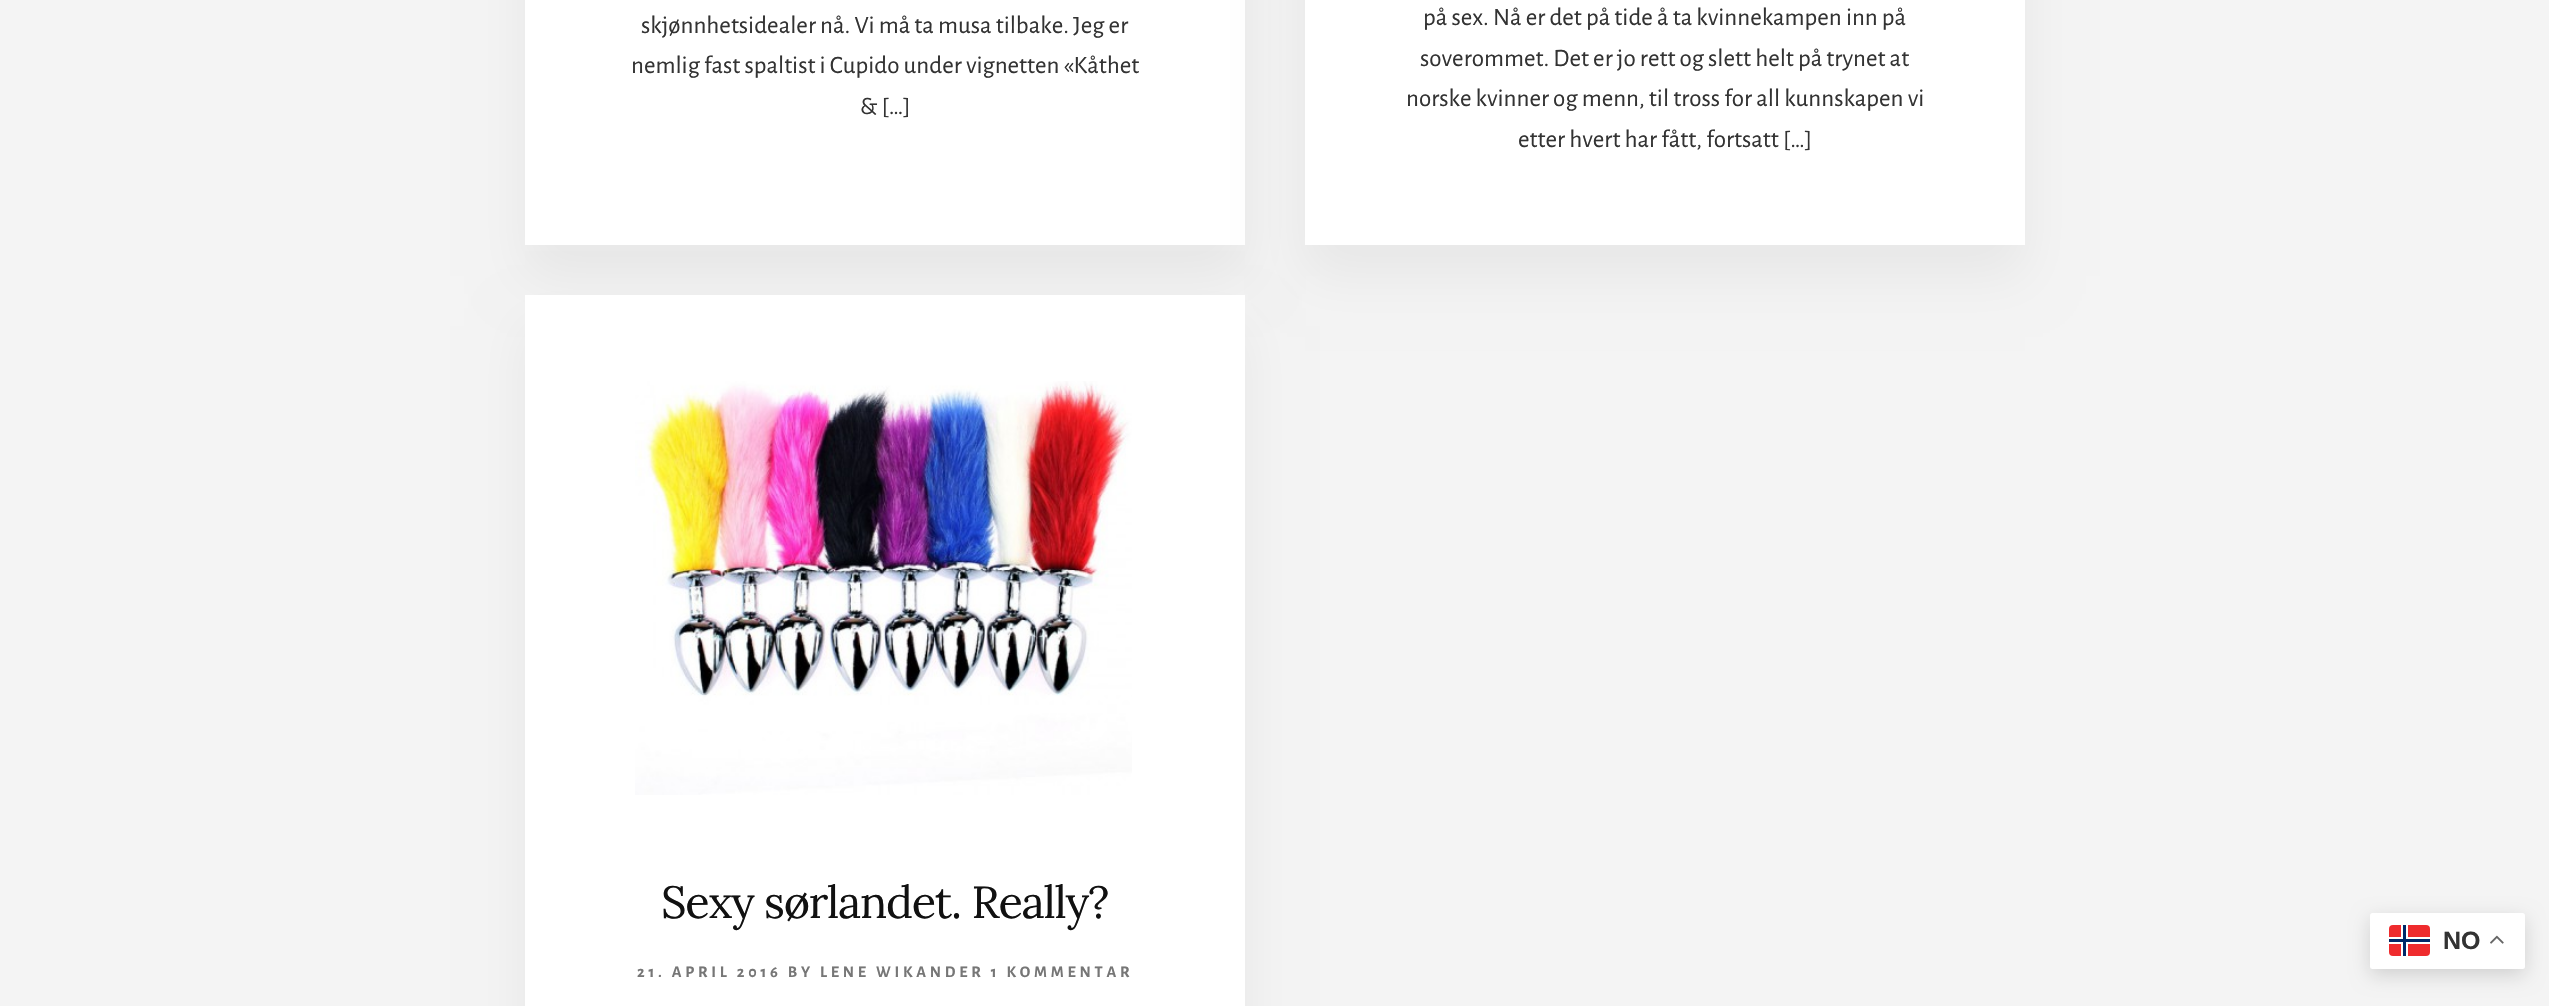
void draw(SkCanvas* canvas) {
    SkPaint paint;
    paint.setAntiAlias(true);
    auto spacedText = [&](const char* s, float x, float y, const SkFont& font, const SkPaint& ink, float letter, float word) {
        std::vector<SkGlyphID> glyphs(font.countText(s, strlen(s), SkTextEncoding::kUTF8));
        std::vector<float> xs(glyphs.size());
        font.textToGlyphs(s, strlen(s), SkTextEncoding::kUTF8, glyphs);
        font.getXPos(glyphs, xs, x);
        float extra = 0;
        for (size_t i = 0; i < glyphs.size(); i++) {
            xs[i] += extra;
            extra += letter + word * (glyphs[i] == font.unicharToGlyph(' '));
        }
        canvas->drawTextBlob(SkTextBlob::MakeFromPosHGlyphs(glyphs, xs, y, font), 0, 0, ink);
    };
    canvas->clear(0xFFF4F4F4);
    paint.setColor(0x0D000000);
    paint.setMaskFilter(SkMaskFilter::MakeBlur(kNormal_SkBlurStyle, 25));
    canvas->drawRect(SkRect::MakeXYWH(525, -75, 720, 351), paint);
    paint.setMaskFilter(nullptr);
    paint.setColor(0xFFFFFFFF);
    canvas->drawRect(SkRect::MakeXYWH(525, 0, 720, 245), paint);
    SkFont font1(fontMgr->matchFamilyStyle("Alegreya Sans", SkFontStyle::Normal()), 25);
    font1.setSubpixel(true);
    paint.setColor(0xFF333333);
    canvas->drawString("skjønnhetsidealer nå. Vi må ta musa tilbake. Jeg er", 641, 33, font1, paint);
    canvas->drawString("nemlig fast spaltist i Cupido under vignetten «Kåthet", 631, 73, font1, paint);
    canvas->drawString("& […]", 860, 114, font1, paint);
    paint.setColor(0x0D000000);
    paint.setMaskFilter(SkMaskFilter::MakeBlur(kNormal_SkBlurStyle, 25));
    canvas->drawRect(SkRect::MakeXYWH(1305, -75, 720, 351), paint);
    paint.setMaskFilter(nullptr);
    paint.setColor(0xFFFFFFFF);
    canvas->drawRect(SkRect::MakeXYWH(1305, 0, 720, 245), paint);
    paint.setColor(0xFF333333);
    canvas->drawString("på sex. Nå er det på tide å ta kvinnekampen inn på", 1423, 25, font1, paint);
    canvas->drawString("soverommet. Det er jo rett og slett helt på trynet at", 1420, 66, font1, paint);
    canvas->drawString("norske kvinner og menn, til tross for all kunnskapen vi", 1406, 106, font1, paint);
    canvas->drawString("etter hvert har fått, fortsatt […]", 1518, 147, font1, paint);
    paint.setColor(0x0D000000);
    paint.setMaskFilter(SkMaskFilter::MakeBlur(kNormal_SkBlurStyle, 25));
    canvas->drawRect(SkRect::MakeXYWH(525, 326, 720, 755), paint);
    paint.setMaskFilter(nullptr);
    paint.setColor(0xFFFFFFFF);
    canvas->drawRect(SkRect::MakeXYWH(525, 295, 720, 711), paint);
    canvas->drawImageRect(SkImages::DeferredFromEncodedData(SkData::MakeFromFileName("img1.png")), SkRect::MakeXYWH(635, 381, 497, 414), SkSamplingOptions());
    SkFont font2(fontMgr->matchFamilyStyle("Lora", SkFontStyle::Normal()), 45);
    font2.setSubpixel(true);
    paint.setColor(0xFF111111);
    spacedText("Sexy sørlandet. Really?", 661, 918, font2, paint, -1.25f, 0);
    SkFont font3(fontMgr->matchFamilyStyle("Alegreya Sans", SkFontStyle::Bold()), 16.25f);
    font3.setSubpixel(true);
    paint.setColor(0xFF767676);
    spacedText("21. APRIL 2016 BY LENE WIKANDER 1 KOMMENTAR", 637, 977, font3, paint, 3.75f, 0);
    paint.setColor(0x26000000);
    paint.setMaskFilter(SkMaskFilter::MakeBlur(kNormal_SkBlurStyle, 9.5f));
    canvas->drawRoundRect(SkRect::MakeXYWH(2370, 919, 155, 56), 2.5f, 2.5f, paint);
    paint.setMaskFilter(nullptr);
    paint.setColor(0xFFFFFFFF);
    canvas->drawRoundRect(SkRect::MakeXYWH(2370, 913, 155, 56), 2.5f, 2.5f, paint);
    paint.setColor(0xFFEF2B2D);
    canvas->drawRoundRect(SkRect::MakeXYWH(2389, 925, 41, 31), 4, 4, paint);
    paint.setColor(0xFFFFFFFF);
    canvas->drawRect(SkRect::MakeXYWH(2401, 925, 7, 31), paint);
    canvas->drawRect(SkRect::MakeXYWH(2389, 937, 41, 7), paint);
    paint.setColor(0xFF002868);
    canvas->drawRect(SkRect::MakeXYWH(2403, 925, 3, 31), paint);
    canvas->drawRect(SkRect::MakeXYWH(2389, 939, 41, 3), paint);
    SkFont font4(fontMgr->matchFamilyStyle("Liberation Sans", SkFontStyle::Bold()), 25);
    font4.setSubpixel(true);
    paint.setColor(0xFF333333);
    canvas->drawString("NO", 2443, 949, font4, paint);
    canvas->drawImageRect(SkImages::DeferredFromEncodedData(SkData::MakeFromFileName("img2.png")), SkRect::MakeXYWH(2490, 935, 14, 9), SkSamplingOptions());
}
